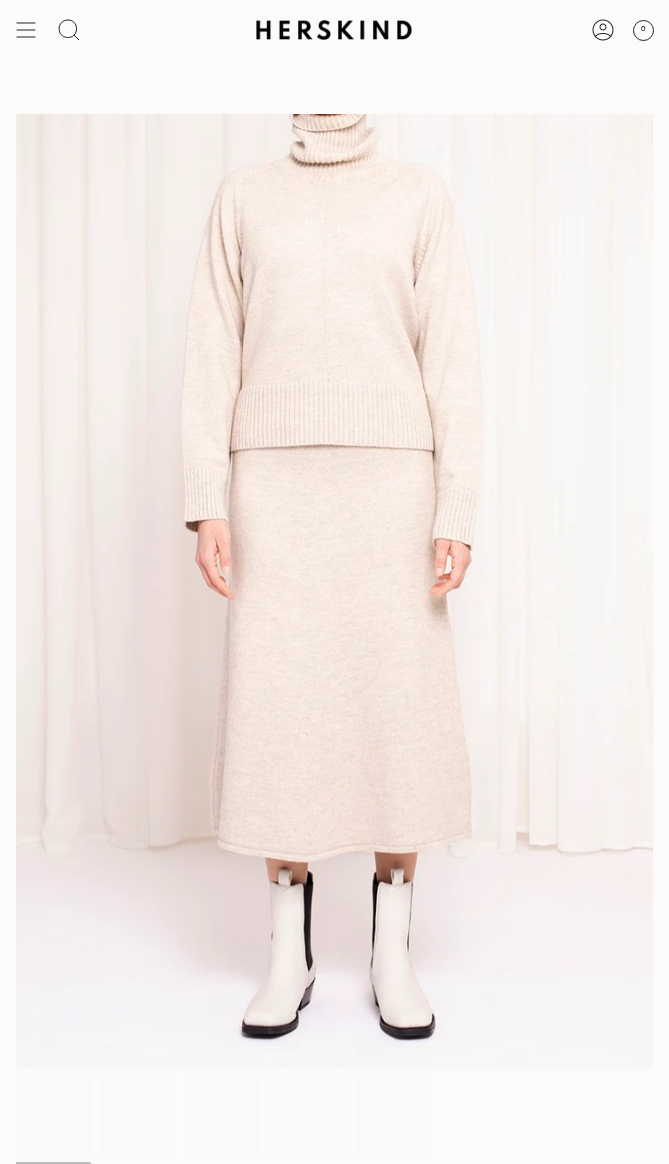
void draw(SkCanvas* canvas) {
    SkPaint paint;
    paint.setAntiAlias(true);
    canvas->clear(0xFFFCFBF9);
    paint.setStyle(SkPaint::kStroke_Style);
    paint.setStrokeWidth(1);
    paint.setStrokeCap(SkPaint::kRound_Cap);
    paint.setStrokeJoin(SkPaint::kRound_Join);
    paint.setColor(0xFF212121);
    canvas->drawPath(SkPathBuilder().moveTo(17, 23).lineTo(35, 23).moveTo(17, 30).lineTo(35, 30).moveTo(17, 37).lineTo(35, 37).detach(), paint);
    paint.setStrokeCap(SkPaint::kButt_Cap);
    paint.setStrokeJoin(SkPaint::kMiter_Join);
    canvas->drawPath(SkPathBuilder().moveTo(68, 20).cubicTo(79.5f, 20, 79.5f, 38, 67.5f, 37.5f).cubicTo(56, 37, 56.5f, 20, 68, 20).close().moveTo(74, 35).lineTo(79, 40).detach(), paint);
    canvas->drawImageRect(SkImages::DeferredFromEncodedData(SkData::MakeFromFileName("img1.png")), SkRect::MakeXYWH(256, 20, 156, 20), SkSamplingOptions());
    canvas->drawImageRect(SkImages::DeferredFromEncodedData(SkData::MakeFromFileName("img2.png")), SkRect::MakeXYWH(592, 19, 22, 22), SkSamplingOptions());
    canvas->drawCircle(643.5f, 30.5f, 10, paint);
    SkFont font1(fontMgr->matchFamilyStyle("Figtree", SkFontStyle(500, SkFontStyle::kNormal_Width, SkFontStyle::kUpright_Slant)), 7);
    font1.setSubpixel(true);
    paint.setStyle(SkPaint::kFill_Style);
    canvas->drawString("0", 641, 31, font1, paint);
    canvas->drawImageRect(SkImages::DeferredFromEncodedData(SkData::MakeFromFileName("img3.png")), SkRect::MakeXYWH(16, 114, 637, 955), SkSamplingOptions());
    paint.setColor(0xFFF7F9FA);
    canvas->drawRect(SkRect::MakeXYWH(16, 1079, 75, 75), paint);
    paint.setColor(0xFFBDBDBD);
    canvas->drawRect(SkRect::MakeXYWH(16, 1162, 75, 2), paint);
    paint.setColor(0xFFF7F9FA);
    canvas->drawRect(SkRect::MakeXYWH(101, 1079, 75, 75), paint);
    canvas->drawRect(SkRect::MakeXYWH(186, 1079, 75, 75), paint);
    canvas->drawRect(SkRect::MakeXYWH(271, 1079, 75, 75), paint);
    canvas->drawRect(SkRect::MakeXYWH(356, 1079, 75, 75), paint);
}
